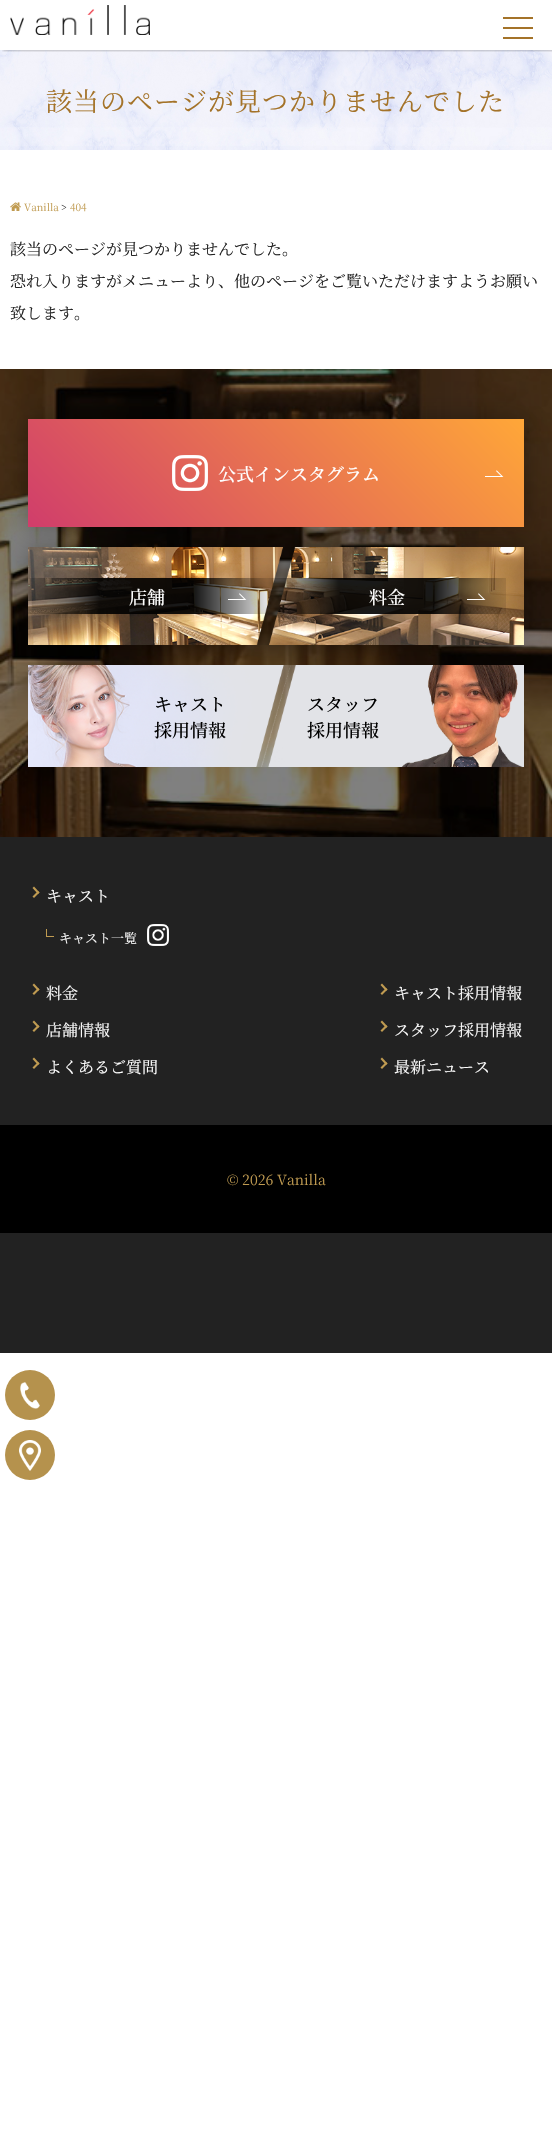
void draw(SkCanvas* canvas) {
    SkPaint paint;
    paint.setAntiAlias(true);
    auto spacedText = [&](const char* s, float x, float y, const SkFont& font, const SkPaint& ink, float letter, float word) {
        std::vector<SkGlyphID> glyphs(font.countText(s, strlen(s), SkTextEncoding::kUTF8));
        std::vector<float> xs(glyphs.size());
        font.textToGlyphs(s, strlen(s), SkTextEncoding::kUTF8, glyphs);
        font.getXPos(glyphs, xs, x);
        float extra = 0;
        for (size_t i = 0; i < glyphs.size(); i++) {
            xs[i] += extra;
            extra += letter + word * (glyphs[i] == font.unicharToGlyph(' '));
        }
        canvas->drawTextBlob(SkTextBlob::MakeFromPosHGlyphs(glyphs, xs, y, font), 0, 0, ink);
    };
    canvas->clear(0xFFFFFFFF);
    canvas->drawImageRect(SkImages::DeferredFromEncodedData(SkData::MakeFromFileName("img2.png")), SkRect::MakeXYWH(0, 50, 552, 100), SkSamplingOptions());
    canvas->save();
    canvas->clipRect(SkRect::MakeXYWH(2, 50, 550, 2));
    paint.setColor(0x33000000);
    paint.setMaskFilter(SkMaskFilter::MakeBlur(kNormal_SkBlurStyle, 1.5f));
    canvas->drawRect(SkRect::MakeXYWH(3, 0, 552, 50), paint);
    paint.setMaskFilter(nullptr);
    paint.setMaskFilter(SkMaskFilter::MakeBlur(kNormal_SkBlurStyle, 1.5f));
    canvas->drawRect(SkRect::MakeXYWH(3, 0, 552, 50), paint);
    paint.setMaskFilter(nullptr);
    canvas->restore();
    canvas->drawImageRect(SkImages::DeferredFromEncodedData(SkData::MakeFromFileName("img1.png")), SkRect::MakeXYWH(10, 5, 140, 30), SkSamplingOptions());
    paint.setColor(0xFFA47329);
    canvas->drawRect(SkRect::MakeXYWH(503, 17, 30, 2), paint);
    canvas->drawRect(SkRect::MakeXYWH(503, 27, 30, 2), paint);
    canvas->drawRect(SkRect::MakeXYWH(503, 37, 30, 2), paint);
    SkFont font1(fontMgr->matchFamilyStyle("Noto Serif JP", SkFontStyle::Normal()), 26);
    font1.setSubpixel(true);
    spacedText("該当のページが見つかりませんでした", 46, 111, font1, paint, 1, 0);
    canvas->drawImageRect(SkImages::DeferredFromEncodedData(SkData::MakeFromFileName("img3.png")), SkRect::MakeXYWH(10, 202, 11, 9), SkSamplingOptions());
    SkFont font2(fontMgr->matchFamilyStyle("Noto Serif JP", SkFontStyle::Normal()), 10);
    font2.setSubpixel(true);
    paint.setColor(0xFFC09B51);
    canvas->drawString("Vanilla", 24, 211, font2, paint);
    paint.setColor(0xFF222222);
    canvas->drawString(">", 61, 211, font2, paint);
    paint.setColor(0xFFC09B51);
    canvas->drawString("404", 70, 211, font2, paint);
    SkFont font3(fontMgr->matchFamilyStyle("Noto Serif JP", SkFontStyle::Normal()), 16);
    font3.setSubpixel(true);
    paint.setColor(0xFF222222);
    canvas->drawString("該当のページが見つかりませんでした。", 10, 255, font3, paint);
    canvas->drawString("恐れ入りますがメニューより、他のページをご覧いただけますようお願い", 10, 287, font3, paint);
    canvas->drawString("致します。", 10, 319, font3, paint);
    canvas->drawRect(SkRect::MakeXYWH(0, 837, 552, 516), paint);
    canvas->drawImageRect(SkImages::DeferredFromEncodedData(SkData::MakeFromFileName("img4.png")), SkRect::MakeXYWH(0, 369, 552, 468), SkSamplingOptions());
    canvas->save();
    canvas->clipPath(SkPathBuilder(SkPathFillType::kEvenOdd).moveTo(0, 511).lineTo(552, 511).lineTo(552, 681).lineTo(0, 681).close().moveTo(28, 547).lineTo(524, 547).lineTo(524, 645).lineTo(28, 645).close().detach(), true);
    paint.setColor(0x4D000000);
    paint.setMaskFilter(SkMaskFilter::MakeBlur(kNormal_SkBlurStyle, 11.5f));
    canvas->drawRect(SkRect::MakeXYWH(28, 547, 496, 98), paint);
    paint.setMaskFilter(nullptr);
    canvas->restore();
    canvas->drawImageRect(SkImages::DeferredFromEncodedData(SkData::MakeFromFileName("img7.png")), SkRect::MakeXYWH(28, 547, 496, 98), SkSamplingOptions());
    paint.setMaskFilter(SkMaskFilter::MakeBlur(kNormal_SkBlurStyle, 11.5f));
    canvas->drawRect(SkRect::MakeXYWH(28, 419, 496, 108), paint);
    paint.setMaskFilter(nullptr);
    {
        const SkColor colors[] = {0xFFD03D6B, 0xFFFFA738};
        const float stops[] = {0, 1};
        const SkPoint ends[] = {{125, 624}, {427, 322}};
        paint.setShader(SkGradientShader::MakeLinear(ends, colors, stops, 2, SkTileMode::kClamp));
        paint.setAlpha(255);
    }
    canvas->drawRect(SkRect::MakeXYWH(28, 419, 496, 108), paint);
    canvas->drawImageRect(SkImages::DeferredFromEncodedData(SkData::MakeFromFileName("img5.png")), SkRect::MakeXYWH(172, 455, 36, 36), SkSamplingOptions());
    SkFont font4(fontMgr->matchFamilyStyle("Noto Serif JP", SkFontStyle(500, SkFontStyle::kNormal_Width, SkFontStyle::kUpright_Slant)), 18);
    font4.setSubpixel(true);
    paint.setShader(nullptr);
    paint.setColor(0xFFFFFFFF);
    canvas->drawString("公式インスタグラム", 218, 481, font4, paint);
    canvas->drawImageRect(SkImages::DeferredFromEncodedData(SkData::MakeFromFileName("img6.png")), SkRect::MakeXYWH(485, 470, 19, 7), SkSamplingOptions());
    {
        const SkColor colors[] = {0x1A000000, 0xE6000000, 0xE6000000, 0x1A000000};
        const float stops[] = {0, 0.3f, 0.7f, 1};
        const SkPoint ends[] = {{28, 596}, {267, 596}};
        paint.setShader(SkGradientShader::MakeLinear(ends, colors, stops, 4, SkTileMode::kClamp));
        paint.setAlpha(255);
    }
    canvas->drawRect(SkRect::MakeXYWH(28, 578, 239, 36), paint);
    paint.setShader(nullptr);
    paint.setColor(0xFFFFFFFF);
    canvas->drawString("店舗", 129, 604, font4, paint);
    canvas->drawImageRect(SkImages::DeferredFromEncodedData(SkData::MakeFromFileName("img8.png")), SkRect::MakeXYWH(228, 593, 19, 7), SkSamplingOptions());
    {
        const SkColor colors[] = {0x1A000000, 0xE6000000, 0xE6000000, 0x1A000000};
        const float stops[] = {0, 0.3f, 0.7f, 1};
        const SkPoint ends[] = {{267, 596}, {506, 596}};
        paint.setShader(SkGradientShader::MakeLinear(ends, colors, stops, 4, SkTileMode::kClamp));
        paint.setAlpha(255);
    }
    canvas->drawRect(SkRect::MakeXYWH(267, 578, 239, 36), paint);
    paint.setShader(nullptr);
    paint.setColor(0xFFFFFFFF);
    canvas->drawString("料金", 369, 604, font4, paint);
    canvas->drawImageRect(SkImages::DeferredFromEncodedData(SkData::MakeFromFileName("img9.png")), SkRect::MakeXYWH(467, 593, 19, 7), SkSamplingOptions());
    canvas->drawImageRect(SkImages::DeferredFromEncodedData(SkData::MakeFromFileName("img10.png")), SkRect::MakeXYWH(28, 665, 496, 102), SkSamplingOptions());
    paint.setColor(0xFF000000);
    canvas->drawString("キャスト", 154, 711, font4, paint);
    canvas->drawString("採用情報", 154, 737, font4, paint);
    canvas->drawString("スタッフ", 307, 711, font4, paint);
    canvas->drawString("採用情報", 307, 737, font4, paint);
    paint.setColor(0xFFC09B51);
    canvas->drawPath(SkPathBuilder().moveTo(34, 886.5f).lineTo(39.5f, 892.5f).lineTo(38, 894).lineTo(32.5f, 888).close().detach(), paint);
    canvas->drawPath(SkPathBuilder().moveTo(38, 891).lineTo(39.5f, 892.5f).lineTo(34, 898).lineTo(32.5f, 896.5f).close().detach(), paint);
    paint.setColor(0xFFFFFFFF);
    canvas->drawString("キャスト", 46, 902, font3, paint);
    paint.setColor(0xFFC09B51);
    canvas->drawRect(SkRect::MakeXYWH(46, 936, 8, 1), paint);
    canvas->drawRect(SkRect::MakeXYWH(46, 929, 1, 8), paint);
    SkFont font5(fontMgr->matchFamilyStyle("Noto Serif JP", SkFontStyle::Normal()), 13);
    font5.setSubpixel(true);
    paint.setColor(0xFFFFFFFF);
    canvas->drawString("キャスト一覧", 59, 943, font5, paint);
    canvas->drawImageRect(SkImages::DeferredFromEncodedData(SkData::MakeFromFileName("img11.png")), SkRect::MakeXYWH(147, 924, 22, 22), SkSamplingOptions());
    paint.setColor(0xFFC09B51);
    canvas->drawPath(SkPathBuilder().moveTo(34, 983.5f).lineTo(39.5f, 989.5f).lineTo(38, 991).lineTo(32.5f, 985).close().detach(), paint);
    canvas->drawPath(SkPathBuilder().moveTo(38, 988).lineTo(39.5f, 989.5f).lineTo(34, 995).lineTo(32.5f, 993.5f).close().detach(), paint);
    paint.setColor(0xFFFFFFFF);
    canvas->drawString("料金", 46, 999, font3, paint);
    paint.setColor(0xFFC09B51);
    canvas->drawPath(SkPathBuilder().moveTo(34, 1020.5f).lineTo(39.5f, 1026.5f).lineTo(38, 1028).lineTo(32.5f, 1022).close().detach(), paint);
    canvas->drawPath(SkPathBuilder().moveTo(38, 1025).lineTo(39.5f, 1026.5f).lineTo(34, 1032).lineTo(32.5f, 1030.5f).close().detach(), paint);
    paint.setColor(0xFFFFFFFF);
    canvas->drawString("店舗情報", 46, 1036, font3, paint);
    paint.setColor(0xFFC09B51);
    canvas->drawPath(SkPathBuilder().moveTo(34, 1057.5f).lineTo(39.5f, 1063.5f).lineTo(38, 1065).lineTo(32.5f, 1059).close().detach(), paint);
    canvas->drawPath(SkPathBuilder().moveTo(38, 1062).lineTo(39.5f, 1063.5f).lineTo(34, 1069).lineTo(32.5f, 1067.5f).close().detach(), paint);
    paint.setColor(0xFFFFFFFF);
    canvas->drawString("よくあるご質問", 46, 1073, font3, paint);
    paint.setColor(0xFFC09B51);
    canvas->drawPath(SkPathBuilder().moveTo(382, 983.5f).lineTo(387.5f, 989.5f).lineTo(386, 991).lineTo(380.5f, 985).close().detach(), paint);
    canvas->drawPath(SkPathBuilder().moveTo(386, 988).lineTo(387.5f, 989.5f).lineTo(382, 995).lineTo(380.5f, 993.5f).close().detach(), paint);
    paint.setColor(0xFFFFFFFF);
    canvas->drawString("キャスト採用情報", 394, 999, font3, paint);
    paint.setColor(0xFFC09B51);
    canvas->drawPath(SkPathBuilder().moveTo(382, 1020.5f).lineTo(387.5f, 1026.5f).lineTo(386, 1028).lineTo(380.5f, 1022).close().detach(), paint);
    canvas->drawPath(SkPathBuilder().moveTo(386, 1025).lineTo(387.5f, 1026.5f).lineTo(382, 1032).lineTo(380.5f, 1030.5f).close().detach(), paint);
    paint.setColor(0xFFFFFFFF);
    canvas->drawString("スタッフ採用情報", 394, 1036, font3, paint);
    paint.setColor(0xFFC09B51);
    canvas->drawPath(SkPathBuilder().moveTo(382, 1057.5f).lineTo(387.5f, 1063.5f).lineTo(386, 1065).lineTo(380.5f, 1059).close().detach(), paint);
    canvas->drawPath(SkPathBuilder().moveTo(386, 1062).lineTo(387.5f, 1063.5f).lineTo(382, 1069).lineTo(380.5f, 1067.5f).close().detach(), paint);
    paint.setColor(0xFFFFFFFF);
    canvas->drawString("最新ニュース", 394, 1073, font3, paint);
    paint.setColor(0xFF000000);
    canvas->drawRect(SkRect::MakeXYWH(0, 1125, 552, 108), paint);
    SkFont font6(fontMgr->matchFamilyStyle("Noto Serif JP", SkFontStyle::Normal()), 14);
    font6.setSubpixel(true);
    paint.setColor(0xFFC09B51);
    canvas->drawString("© 2026 Vanilla", 227, 1185, font6, paint);
    paint.setColor(0xFFB5924D);
    canvas->drawCircle(30, 1395, 25, paint);
    canvas->drawImageRect(SkImages::DeferredFromEncodedData(SkData::MakeFromFileName("img12.png")), SkRect::MakeXYWH(20, 1382, 20, 27), SkSamplingOptions());
    canvas->drawCircle(30, 1455, 25, paint);
    canvas->drawImageRect(SkImages::DeferredFromEncodedData(SkData::MakeFromFileName("img13.png")), SkRect::MakeXYWH(19, 1440, 22, 31), SkSamplingOptions());
}
